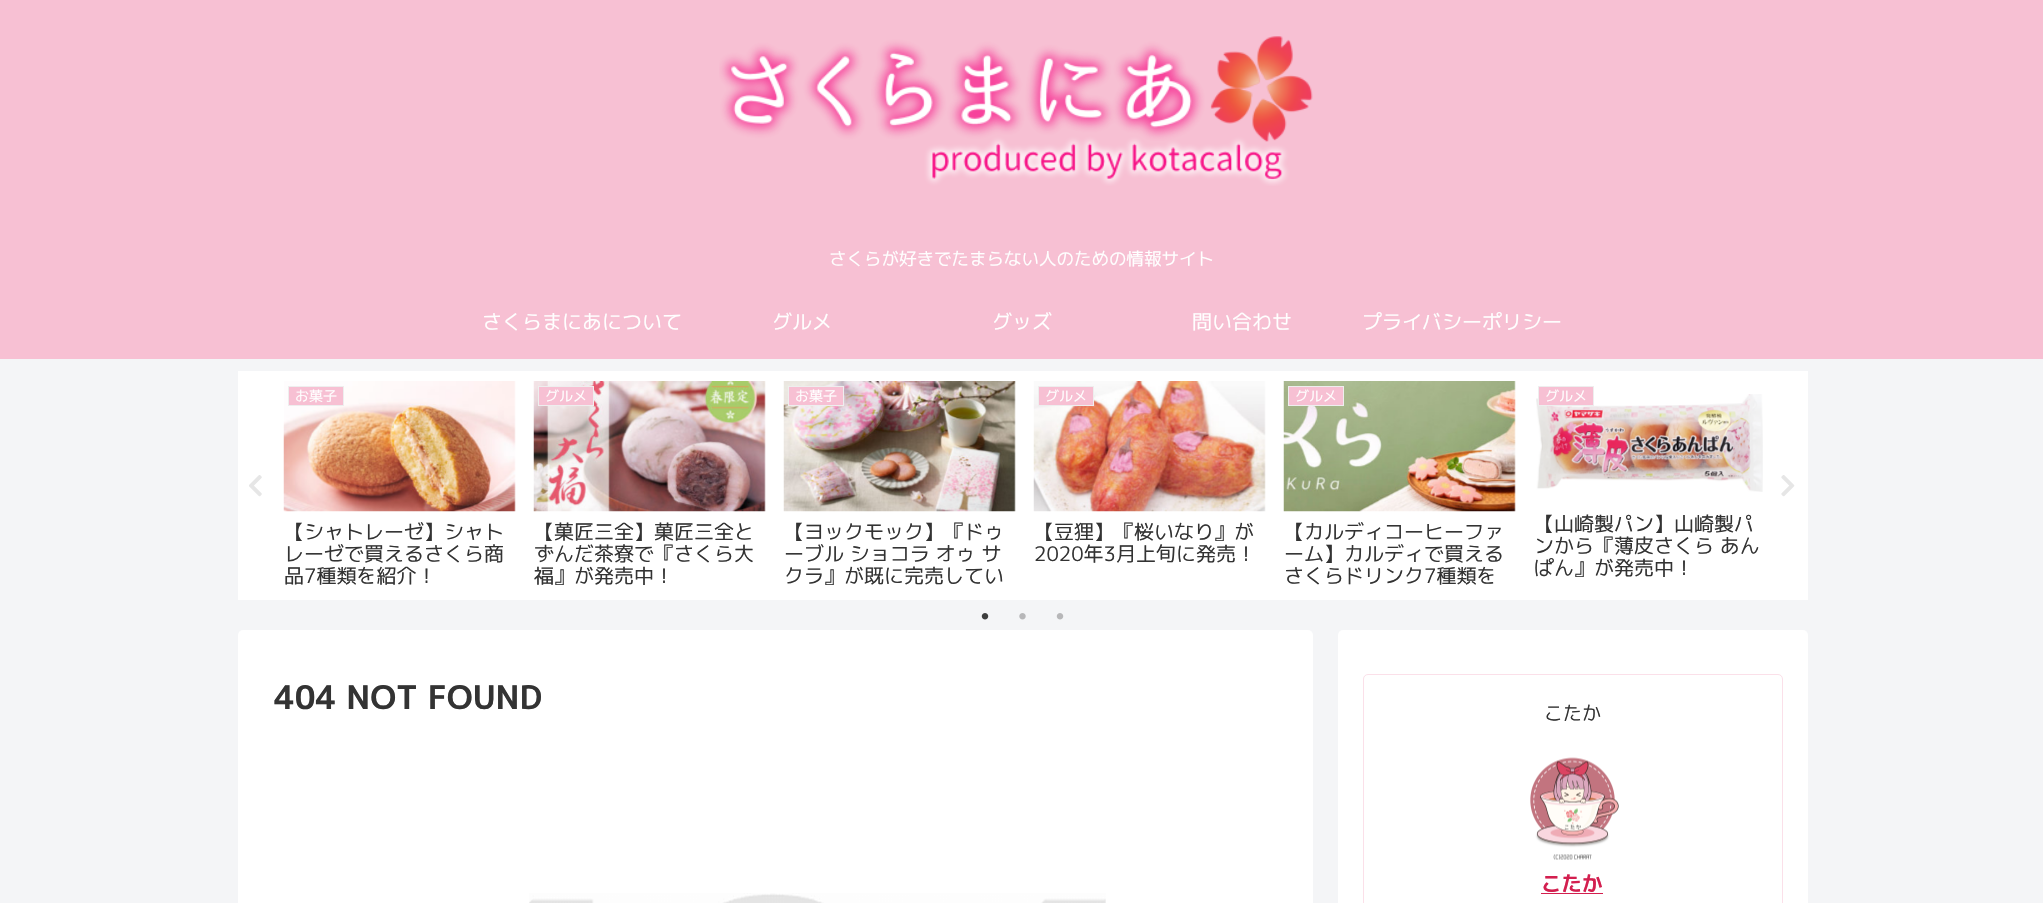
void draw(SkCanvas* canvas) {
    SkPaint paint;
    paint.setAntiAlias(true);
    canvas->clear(0xFFF4F5F7);
    paint.setColor(0xFFF7C0D3);
    canvas->drawRect(SkRect::MakeXYWH(0, 0, 2043, 359), paint);
    canvas->drawImageRect(SkImages::DeferredFromEncodedData(SkData::MakeFromFileName("img1.png")), SkRect::MakeXYWH(719, 36, 594, 150), SkSamplingOptions());
    SkFont font1(fontMgr->matchFamilyStyle("M PLUS 1p", SkFontStyle::Normal()), 17.5f);
    font1.setSubpixel(true);
    paint.setColor(0xFFFFFFFF);
    canvas->drawString("さくらが好きでたまらない人のための情報サイト", 829, 265, font1, paint);
    SkFont font2(fontMgr->matchFamilyStyle("M PLUS 1p", SkFontStyle::Normal()), 20);
    font2.setSubpixel(true);
    canvas->drawString("さくらまにあについて", 482, 329, font2, paint);
    canvas->drawString("グルメ", 772, 329, font2, paint);
    canvas->drawString("グッズ", 992, 329, font2, paint);
    canvas->drawString("問い合わせ", 1192, 329, font2, paint);
    canvas->drawString("プライバシーポリシー", 1362, 329, font2, paint);
    canvas->drawRect(SkRect::MakeXYWH(238, 371, 1570, 229), paint);
    canvas->drawImageRect(SkImages::DeferredFromEncodedData(SkData::MakeFromFileName("img2.png")), SkRect::MakeXYWH(249, 475, 13, 22), SkSamplingOptions());
    canvas->drawImageRect(SkImages::DeferredFromEncodedData(SkData::MakeFromFileName("img3.png")), SkRect::MakeXYWH(283, 381, 233, 131), SkSamplingOptions());
    paint.setColor(0xFFF7C0D3);
    canvas->drawRect(SkRect::MakeXYWH(288.5f, 386.5f, 55, 19), paint);
    paint.setStyle(SkPaint::kStroke_Style);
    paint.setStrokeWidth(1);
    paint.setColor(0xFFEEEEEE);
    canvas->drawRect(SkRect::MakeXYWH(288.5f, 386.5f, 55, 19), paint);
    SkFont font3(fontMgr->matchFamilyStyle("M PLUS 1p", SkFontStyle::Normal()), 14);
    font3.setSubpixel(true);
    paint.setStyle(SkPaint::kFill_Style);
    paint.setColor(0xFFFFFFFF);
    canvas->drawString("お菓子", 295, 401, font3, paint);
    paint.setColor(0xFF333333);
    canvas->drawString("【シャトレーゼ】シャト", 284, 539, font2, paint);
    canvas->drawString("レーゼで買えるさくら商", 284, 561, font2, paint);
    canvas->drawString("品7種類を紹介！", 284, 583, font2, paint);
    canvas->drawImageRect(SkImages::DeferredFromEncodedData(SkData::MakeFromFileName("img4.png")), SkRect::MakeXYWH(533, 381, 233, 131), SkSamplingOptions());
    paint.setColor(0xFFF7C0D3);
    canvas->drawRect(SkRect::MakeXYWH(538.5f, 386.5f, 55, 19), paint);
    paint.setStyle(SkPaint::kStroke_Style);
    paint.setColor(0xFFEEEEEE);
    canvas->drawRect(SkRect::MakeXYWH(538.5f, 386.5f, 55, 19), paint);
    paint.setStyle(SkPaint::kFill_Style);
    paint.setColor(0xFFFFFFFF);
    canvas->drawString("グルメ", 545, 401, font3, paint);
    paint.setColor(0xFF333333);
    canvas->drawString("【菓匠三全】菓匠三全と", 534, 539, font2, paint);
    canvas->drawString("ずんだ茶寮で『さくら大", 534, 561, font2, paint);
    canvas->save();
    canvas->clipRect(SkRect::MakeXYWH(534, 521, 231, 64));
    canvas->drawString("福』が発売中！", 534, 583, font2, paint);
    canvas->restore();
    canvas->drawImageRect(SkImages::DeferredFromEncodedData(SkData::MakeFromFileName("img5.png")), SkRect::MakeXYWH(783, 381, 233, 131), SkSamplingOptions());
    paint.setColor(0xFFF7C0D3);
    canvas->drawRect(SkRect::MakeXYWH(788.5f, 386.5f, 55, 19), paint);
    paint.setStyle(SkPaint::kStroke_Style);
    paint.setColor(0xFFEEEEEE);
    canvas->drawRect(SkRect::MakeXYWH(788.5f, 386.5f, 55, 19), paint);
    paint.setStyle(SkPaint::kFill_Style);
    paint.setColor(0xFFFFFFFF);
    canvas->drawString("お菓子", 795, 401, font3, paint);
    paint.setColor(0xFF333333);
    canvas->drawString("【ヨックモック】『ドゥ", 784, 539, font2, paint);
    canvas->drawString("ーブル ショコラ オゥ サ", 784, 561, font2, paint);
    canvas->save();
    canvas->clipRect(SkRect::MakeXYWH(784, 521, 231, 64));
    canvas->drawString("クラ』が既に完売してい", 784, 583, font2, paint);
    canvas->restore();
    canvas->drawImageRect(SkImages::DeferredFromEncodedData(SkData::MakeFromFileName("img6.png")), SkRect::MakeXYWH(1033, 381, 233, 131), SkSamplingOptions());
    paint.setColor(0xFFF7C0D3);
    canvas->drawRect(SkRect::MakeXYWH(1038.5f, 386.5f, 55, 19), paint);
    paint.setStyle(SkPaint::kStroke_Style);
    paint.setColor(0xFFEEEEEE);
    canvas->drawRect(SkRect::MakeXYWH(1038.5f, 386.5f, 55, 19), paint);
    paint.setStyle(SkPaint::kFill_Style);
    paint.setColor(0xFFFFFFFF);
    canvas->drawString("グルメ", 1045, 401, font3, paint);
    paint.setColor(0xFF333333);
    canvas->drawString("【豆狸】『桜いなり』が", 1034, 539, font2, paint);
    canvas->drawString("2020年3月上旬に発売！", 1034, 561, font2, paint);
    canvas->drawImageRect(SkImages::DeferredFromEncodedData(SkData::MakeFromFileName("img7.png")), SkRect::MakeXYWH(1283, 381, 233, 131), SkSamplingOptions());
    paint.setColor(0xFFF7C0D3);
    canvas->drawRect(SkRect::MakeXYWH(1288.5f, 386.5f, 55, 19), paint);
    paint.setStyle(SkPaint::kStroke_Style);
    paint.setColor(0xFFEEEEEE);
    canvas->drawRect(SkRect::MakeXYWH(1288.5f, 386.5f, 55, 19), paint);
    paint.setStyle(SkPaint::kFill_Style);
    paint.setColor(0xFFFFFFFF);
    canvas->drawString("グルメ", 1295, 401, font3, paint);
    paint.setColor(0xFF333333);
    canvas->drawString("【カルディコーヒーファ", 1284, 539, font2, paint);
    canvas->drawString("ーム】カルディで買える", 1284, 561, font2, paint);
    canvas->drawString("さくらドリンク7種類を", 1284, 583, font2, paint);
    canvas->drawImageRect(SkImages::DeferredFromEncodedData(SkData::MakeFromFileName("img8.png")), SkRect::MakeXYWH(1536, 394, 227, 98), SkSamplingOptions());
    paint.setColor(0xFFF7C0D3);
    canvas->drawRect(SkRect::MakeXYWH(1538.5f, 386.5f, 55, 19), paint);
    paint.setStyle(SkPaint::kStroke_Style);
    paint.setColor(0xFFEEEEEE);
    canvas->drawRect(SkRect::MakeXYWH(1538.5f, 386.5f, 55, 19), paint);
    paint.setStyle(SkPaint::kFill_Style);
    paint.setColor(0xFFFFFFFF);
    canvas->drawString("グルメ", 1545, 401, font3, paint);
    paint.setColor(0xFF333333);
    canvas->drawString("【山崎製パン】山崎製パ", 1534, 531, font2, paint);
    canvas->drawString("ンから『薄皮さくら あん", 1534, 553, font2, paint);
    canvas->drawString("ぱん』が発売中！", 1534, 575, font2, paint);
    canvas->drawImageRect(SkImages::DeferredFromEncodedData(SkData::MakeFromFileName("img9.png")), SkRect::MakeXYWH(1781, 475, 14, 22), SkSamplingOptions());
    canvas->drawImageRect(SkImages::DeferredFromEncodedData(SkData::MakeFromFileName("img10.png")), SkRect::MakeXYWH(981, 613, 8, 7), SkSamplingOptions());
    canvas->drawImageRect(SkImages::DeferredFromEncodedData(SkData::MakeFromFileName("img11.png")), SkRect::MakeXYWH(1019, 613, 7, 7), SkSamplingOptions());
    canvas->drawImageRect(SkImages::DeferredFromEncodedData(SkData::MakeFromFileName("img12.png")), SkRect::MakeXYWH(1056, 613, 8, 7), SkSamplingOptions());
    paint.setColor(0xFFFFFFFF);
    canvas->drawRoundRect(SkRect::MakeXYWH(238, 630, 1075, 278), 5, 5, paint);
    SkFont font4(fontMgr->matchFamilyStyle("M PLUS 1p", SkFontStyle::Bold()), 32.5f);
    font4.setSubpixel(true);
    paint.setColor(0xFF333333);
    canvas->drawString("404 NOT FOUND", 274, 709, font4, paint);
    canvas->drawImageRect(SkImages::DeferredFromEncodedData(SkData::MakeFromFileName("img13.png")), SkRect::MakeXYWH(529, 893, 577, 10), SkSamplingOptions());
    paint.setColor(0xFFFFFFFF);
    canvas->drawRoundRect(SkRect::MakeXYWH(1338, 630, 470, 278), 5, 5, paint);
    paint.setStyle(SkPaint::kStroke_Style);
    paint.setColor(0xFFFBE0E9);
    canvas->drawRoundRect(SkRect::MakeXYWH(1363.5f, 674.5f, 419, 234), 4.5f, 4.5f, paint);
    SkFont font5(fontMgr->matchFamilyStyle("M PLUS 1p", SkFontStyle::Normal()), 19);
    font5.setSubpixel(true);
    paint.setStyle(SkPaint::kFill_Style);
    paint.setColor(0xFF333333);
    canvas->drawString("こたか", 1544, 720, font5, paint);
    canvas->drawImageRect(SkImages::DeferredFromEncodedData(SkData::MakeFromFileName("img14.png")), SkRect::MakeXYWH(1530, 757, 89, 103), SkSamplingOptions());
    SkFont font6(fontMgr->matchFamilyStyle("M PLUS 1p", SkFontStyle::Bold()), 20.5f);
    font6.setSubpixel(true);
    paint.setColor(0xFFD31F4F);
    canvas->drawString("こたか", 1541, 891, font6, paint);
    canvas->drawRect(SkRect::MakeXYWH(1541, 893, 62, 1), paint);
}
